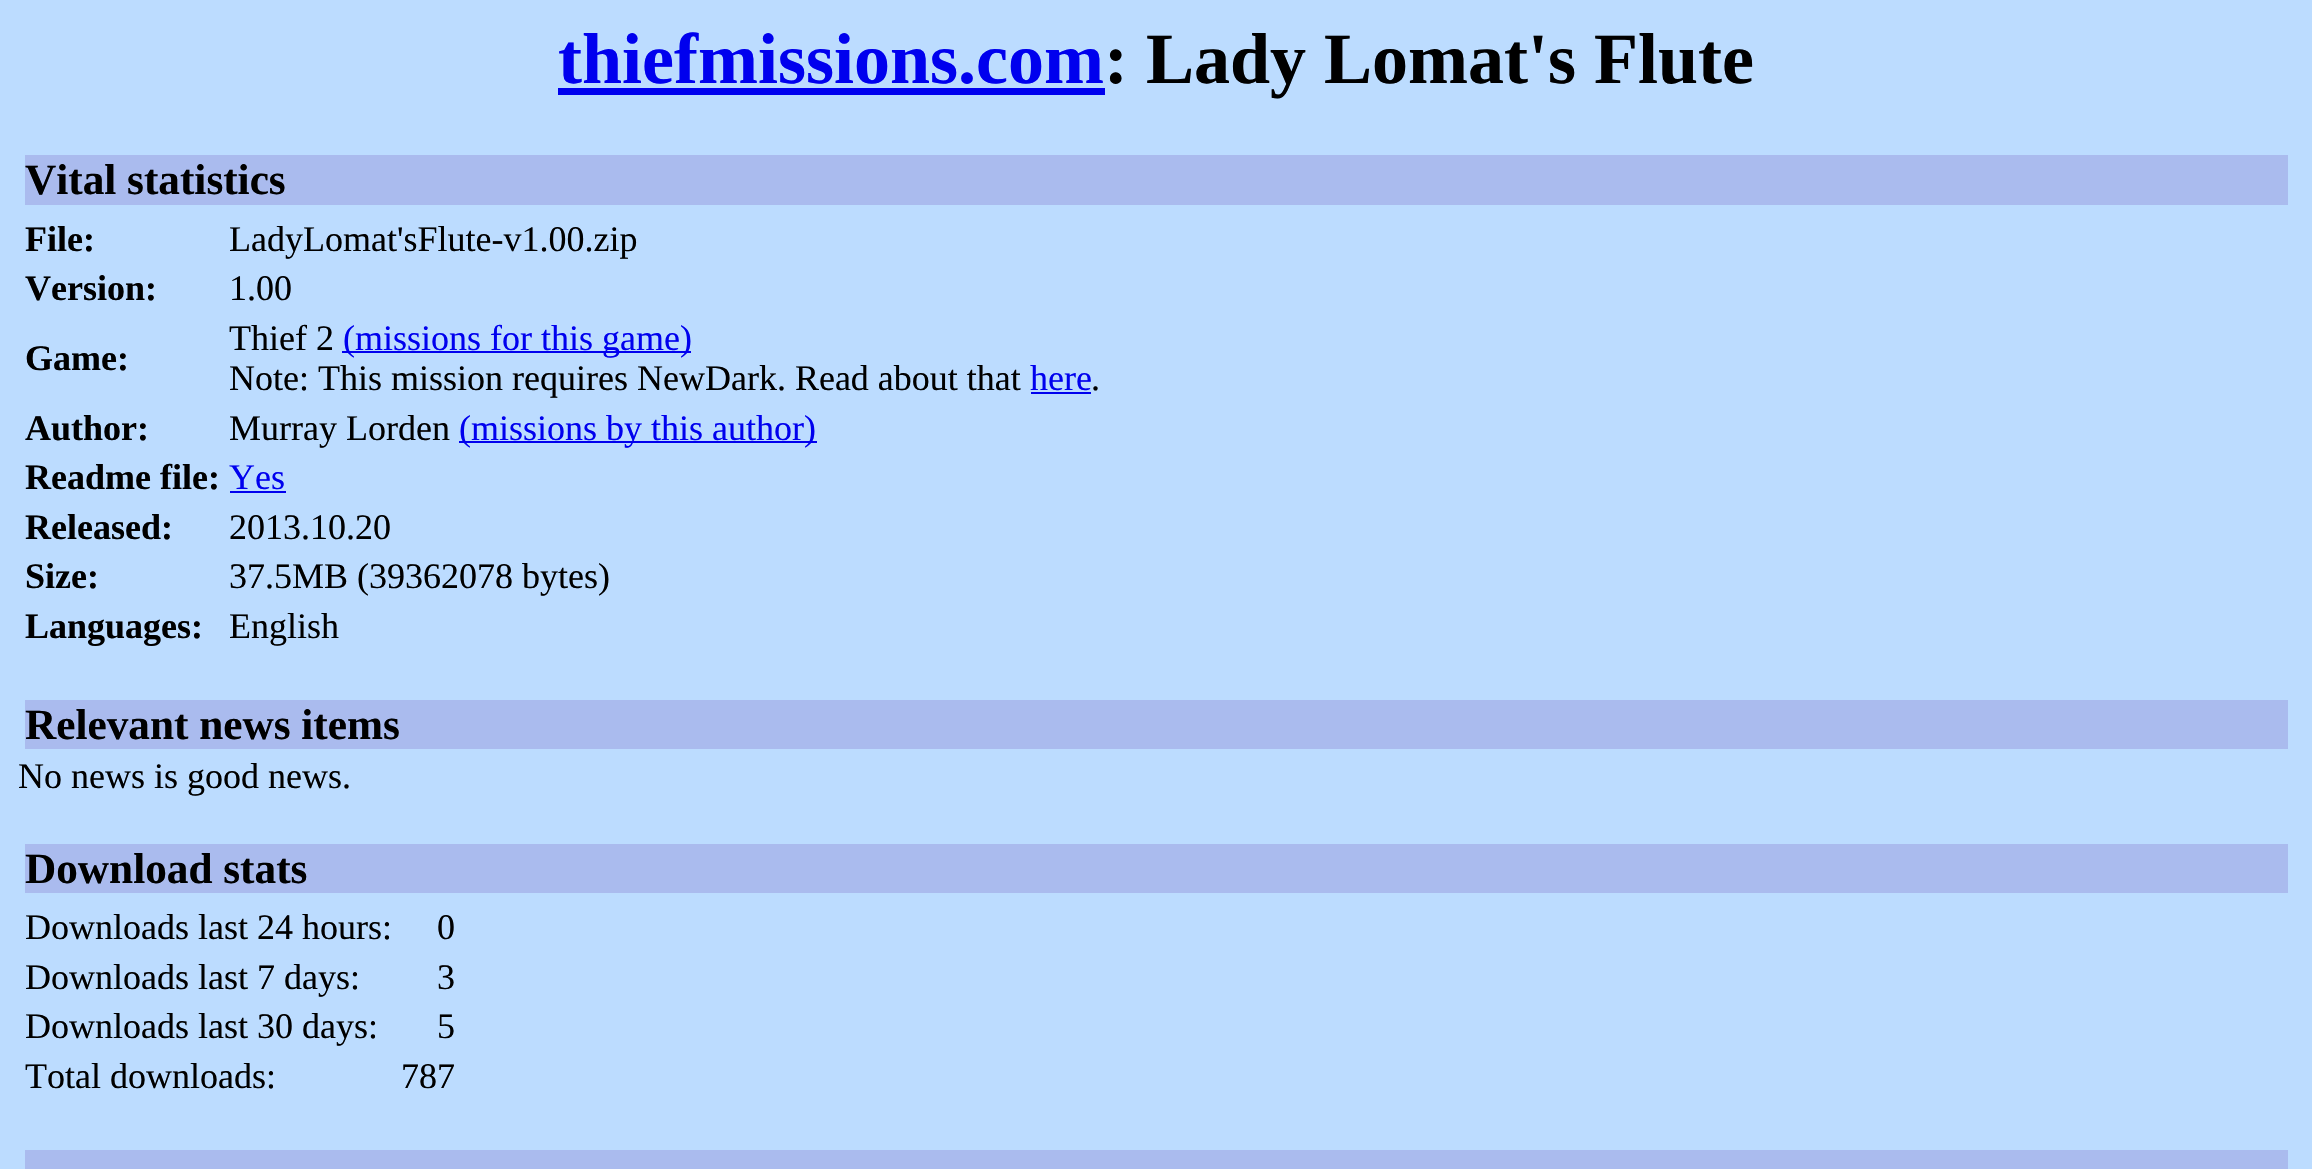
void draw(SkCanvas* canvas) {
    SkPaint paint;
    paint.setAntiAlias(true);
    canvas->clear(0xFFBCDCFF);
    SkFont font1(fontMgr->matchFamilyStyle("Liberation Serif", SkFontStyle::Bold()), 72);
    font1.setSubpixel(true);
    paint.setColor(0xFF0000EE);
    canvas->drawString("thiefmissions.com", 558, 83, font1, paint);
    canvas->drawRect(SkRect::MakeXYWH(558, 88, 547, 7), paint);
    paint.setColor(0xFF000000);
    canvas->drawString(": Lady Lomat's Flute", 1104, 83, font1, paint);
    paint.setColor(0xFFAABBEE);
    canvas->drawRect(SkRect::MakeXYWH(25, 155, 2263, 50), paint);
    SkFont font2(fontMgr->matchFamilyStyle("Liberation Serif", SkFontStyle::Bold()), 43.25f);
    font2.setSubpixel(true);
    paint.setColor(0xFF000000);
    canvas->drawString("Vital statistics", 25, 194, font2, paint);
    SkFont font3(fontMgr->matchFamilyStyle("Liberation Serif", SkFontStyle::Bold()), 36);
    font3.setSubpixel(true);
    canvas->drawString("File:", 25, 251, font3, paint);
    SkFont font4(fontMgr->matchFamilyStyle("Liberation Serif", SkFontStyle::Normal()), 36);
    font4.setSubpixel(true);
    canvas->drawString("LadyLomat'sFlute-v1.00.zip", 229, 251, font4, paint);
    canvas->drawString("Version:", 25, 300, font3, paint);
    canvas->drawString("1.00", 229, 300, font4, paint);
    canvas->drawString("Game:", 25, 370, font3, paint);
    canvas->drawString("Thief 2", 229, 350, font4, paint);
    paint.setColor(0xFF0000EE);
    canvas->drawRect(SkRect::MakeXYWH(342, 351, 349, 2), paint);
    canvas->drawString("(missions for this game)", 343, 350, font4, paint);
    paint.setColor(0xFF000000);
    canvas->drawString("Note: This mission requires NewDark. Read about that", 229, 390, font4, paint);
    paint.setColor(0xFF0000EE);
    canvas->drawString("here", 1030, 390, font4, paint);
    canvas->drawRect(SkRect::MakeXYWH(1031, 392, 60, 2), paint);
    paint.setColor(0xFF000000);
    canvas->drawString(".", 1091, 390, font4, paint);
    canvas->drawString("Author:", 25, 440, font3, paint);
    canvas->drawString("Murray Lorden", 229, 440, font4, paint);
    paint.setColor(0xFF0000EE);
    canvas->drawRect(SkRect::MakeXYWH(459, 441, 358, 2), paint);
    canvas->drawString("(missions by this author)", 459, 440, font4, paint);
    paint.setColor(0xFF000000);
    canvas->drawString("Readme file:", 25, 489, font3, paint);
    paint.setColor(0xFF0000EE);
    canvas->drawString("Yes", 229, 489, font4, paint);
    canvas->drawRect(SkRect::MakeXYWH(230, 491, 56, 2), paint);
    paint.setColor(0xFF000000);
    canvas->drawString("Released:", 25, 539, font3, paint);
    canvas->drawString("2013.10.20", 229, 539, font4, paint);
    canvas->drawString("Size:", 25, 588, font3, paint);
    canvas->drawString("37.5MB (39362078 bytes)", 229, 588, font4, paint);
    canvas->drawString("Languages:", 25, 638, font3, paint);
    canvas->drawString("English", 229, 638, font4, paint);
    paint.setColor(0xFFAABBEE);
    canvas->drawRect(SkRect::MakeXYWH(25, 700, 2263, 49), paint);
    paint.setColor(0xFF000000);
    canvas->drawString("Relevant news items", 25, 739, font2, paint);
    canvas->drawString("No news is good news.", 18, 788, font4, paint);
    paint.setColor(0xFFAABBEE);
    canvas->drawRect(SkRect::MakeXYWH(25, 844, 2263, 49), paint);
    paint.setColor(0xFF000000);
    canvas->drawString("Download stats", 25, 883, font2, paint);
    canvas->drawString("Downloads last 24 hours:", 25, 939, font4, paint);
    canvas->drawString("0", 437, 939, font4, paint);
    canvas->drawString("Downloads last 7 days:", 25, 989, font4, paint);
    canvas->drawString("3", 437, 989, font4, paint);
    canvas->drawString("Downloads last 30 days:", 25, 1038, font4, paint);
    canvas->drawString("5", 437, 1038, font4, paint);
    canvas->drawString("Total downloads:", 25, 1088, font4, paint);
    canvas->drawString("787", 401, 1088, font4, paint);
    paint.setColor(0xFFAABBEE);
    canvas->drawRect(SkRect::MakeXYWH(25, 1150, 2263, 19), paint);
}
